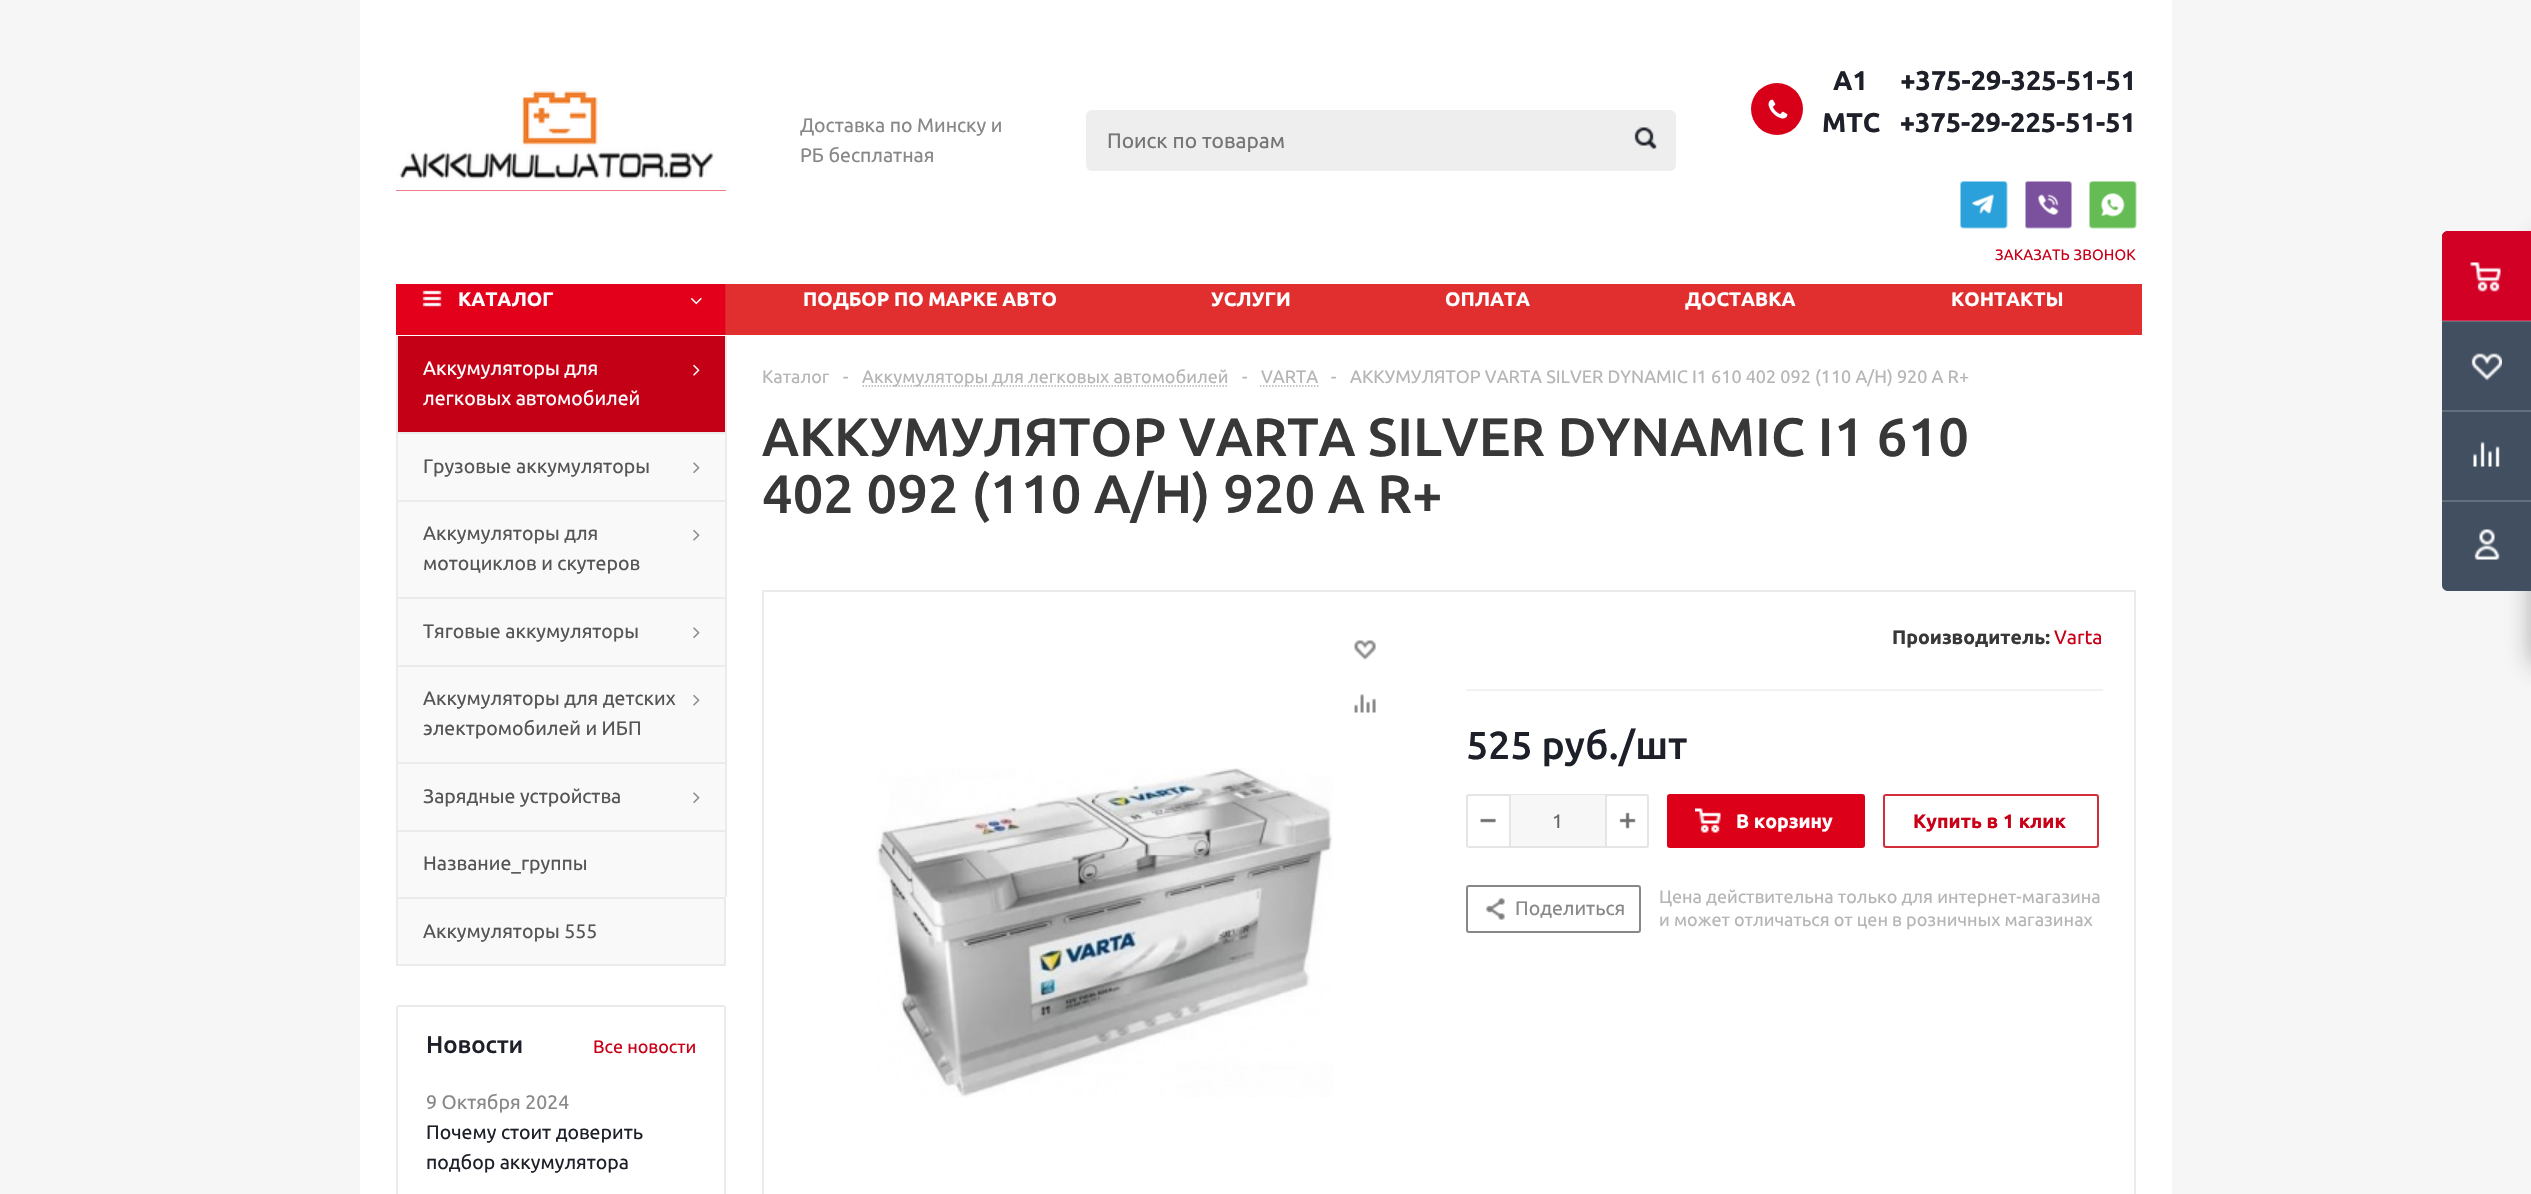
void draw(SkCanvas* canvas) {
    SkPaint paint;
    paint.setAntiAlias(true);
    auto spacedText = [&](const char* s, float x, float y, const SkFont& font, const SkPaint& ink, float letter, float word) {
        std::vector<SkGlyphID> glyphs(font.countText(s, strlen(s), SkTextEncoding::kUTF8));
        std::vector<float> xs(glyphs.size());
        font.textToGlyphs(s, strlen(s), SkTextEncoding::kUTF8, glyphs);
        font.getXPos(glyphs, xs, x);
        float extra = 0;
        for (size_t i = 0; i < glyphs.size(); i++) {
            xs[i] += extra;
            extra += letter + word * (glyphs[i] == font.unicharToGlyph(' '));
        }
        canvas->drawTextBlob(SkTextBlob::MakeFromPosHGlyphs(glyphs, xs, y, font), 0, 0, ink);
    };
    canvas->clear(0xFFF6F6F7);
    paint.setColor(0xFFFFFFFF);
    canvas->drawRect(SkRect::MakeXYWH(360, 0, 1812, 1194), paint);
    paint.setColor(0xFFDD0019);
    canvas->drawRect(SkRect::MakeXYWH(396, 190, 330, 1), paint);
    canvas->drawImageRect(SkImages::DeferredFromEncodedData(SkData::MakeFromFileName("img1.png")), SkRect::MakeXYWH(396, 89, 330, 102), SkSamplingOptions());
    SkFont font1(fontMgr->matchFamilyStyle("Ubuntu", SkFontStyle::Normal()), 19.5f);
    font1.setSubpixel(true);
    paint.setColor(0xFF888888);
    canvas->drawString("Доставка по Минску и", 800, 132, font1, paint);
    canvas->drawString("РБ бесплатная", 800, 162, font1, paint);
    paint.setColor(0xFFEEEEEE);
    canvas->drawRoundRect(SkRect::MakeXYWH(1086, 110, 590, 61), 6, 6, paint);
    SkFont font2(fontMgr->matchFamilyStyle("Ubuntu", SkFontStyle::Normal()), 21);
    font2.setSubpixel(true);
    paint.setColor(0xFF757575);
    canvas->drawString("Поиск по товарам", 1107, 148, font2, paint);
    canvas->drawImageRect(SkImages::DeferredFromEncodedData(SkData::MakeFromFileName("img2.png")), SkRect::MakeXYWH(1634, 127, 23, 22), SkSamplingOptions());
    paint.setColor(0xFFD80019);
    canvas->drawCircle(1777, 109, 26, paint);
    canvas->drawImageRect(SkImages::DeferredFromEncodedData(SkData::MakeFromFileName("img3.png")), SkRect::MakeXYWH(1768, 99, 20, 20), SkSamplingOptions());
    SkFont font3(fontMgr->matchFamilyStyle("Ubuntu", SkFontStyle::Bold()), 27);
    font3.setSubpixel(true);
    paint.setColor(0xFF1D2029);
    canvas->drawString("A1     +375-29-325-51-51", 1833, 90, font3, paint);
    canvas->drawString("MTC   +375-29-225-51-51", 1822, 132, font3, paint);
    canvas->drawImageRect(SkImages::DeferredFromEncodedData(SkData::MakeFromFileName("img4.png")), SkRect::MakeXYWH(1960, 181, 48, 48), SkSamplingOptions());
    canvas->drawImageRect(SkImages::DeferredFromEncodedData(SkData::MakeFromFileName("img5.png")), SkRect::MakeXYWH(2025, 181, 47, 48), SkSamplingOptions());
    canvas->drawImageRect(SkImages::DeferredFromEncodedData(SkData::MakeFromFileName("img6.png")), SkRect::MakeXYWH(2089, 181, 48, 48), SkSamplingOptions());
    SkFont font4(fontMgr->matchFamilyStyle("Ubuntu", SkFontStyle::Normal()), 15);
    font4.setSubpixel(true);
    paint.setColor(0xFFC90017);
    spacedText("ЗАКАЗАТЬ ЗВОНОК", 1995, 260, font4, paint, 0.1f, 0);
    paint.setColor(0x662C2C2C);
    paint.setMaskFilter(SkMaskFilter::MakeBlur(kNormal_SkBlurStyle, 13.5f));
    canvas->drawRoundRect(SkRect::MakeXYWH(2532, 240, 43, 425), 3, 3, paint);
    paint.setMaskFilter(nullptr);
    paint.setColor(0xFF424F60);
    canvas->drawPath(SkPathBuilder().moveTo(2448, 231).lineTo(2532, 231).lineTo(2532, 591).lineTo(2448, 591).cubicTo(2444.5f, 591, 2442, 588.5f, 2442, 585).lineTo(2442, 237).cubicTo(2442, 233.5f, 2444.5f, 231, 2448, 231).close().detach(), paint);
    paint.setColor(0xFFD30026);
    canvas->drawPath(SkPathBuilder().moveTo(2448, 231).lineTo(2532, 231).lineTo(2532, 321).lineTo(2442, 321).lineTo(2442, 237).cubicTo(2442, 233.5f, 2444.5f, 231, 2448, 231).close().detach(), paint);
    canvas->drawImageRect(SkImages::DeferredFromEncodedData(SkData::MakeFromFileName("img7.png")), SkRect::MakeXYWH(2470, 262, 31, 30), SkSamplingOptions());
    paint.setColor(0x33E7EDF2);
    canvas->drawRect(SkRect::MakeXYWH(2442, 320, 89, 2), paint);
    canvas->drawImageRect(SkImages::DeferredFromEncodedData(SkData::MakeFromFileName("img8.png")), SkRect::MakeXYWH(2471, 353, 31, 28), SkSamplingOptions());
    paint.setColor(0xFF636F7D);
    canvas->drawRect(SkRect::MakeXYWH(2442, 410, 89, 2), paint);
    canvas->drawImageRect(SkImages::DeferredFromEncodedData(SkData::MakeFromFileName("img9.png")), SkRect::MakeXYWH(2473, 441, 27, 26), SkSamplingOptions());
    canvas->drawRect(SkRect::MakeXYWH(2442, 500, 89, 2), paint);
    canvas->drawImageRect(SkImages::DeferredFromEncodedData(SkData::MakeFromFileName("img10.png")), SkRect::MakeXYWH(2474, 529, 26, 31), SkSamplingOptions());
    paint.setColor(0xFFE2001A);
    canvas->drawRect(SkRect::MakeXYWH(396, 284, 329, 51), paint);
    paint.setColor(0xFFE51A31);
    canvas->drawRect(SkRect::MakeXYWH(725, 284, 1, 51), paint);
    canvas->drawImageRect(SkImages::DeferredFromEncodedData(SkData::MakeFromFileName("img11.png")), SkRect::MakeXYWH(422, 290, 20, 17), SkSamplingOptions());
    SkFont font5(fontMgr->matchFamilyStyle("Ubuntu", SkFontStyle::Bold()), 19.5f);
    font5.setSubpixel(true);
    paint.setColor(0xFFFFFFFF);
    canvas->drawString("КАТАЛОГ", 458, 306, font5, paint);
    canvas->drawImageRect(SkImages::DeferredFromEncodedData(SkData::MakeFromFileName("img12.png")), SkRect::MakeXYWH(690, 297, 12, 8), SkSamplingOptions());
    paint.setColor(0xFFE12E2E);
    canvas->drawRect(SkRect::MakeXYWH(726, 284, 1416, 51), paint);
    paint.setColor(0xFFFFFFFF);
    canvas->drawString("ПОДБОР ПО МАРКЕ АВТО", 803, 306, font5, paint);
    canvas->drawString("УСЛУГИ", 1211, 306, font5, paint);
    canvas->drawString("ОПЛАТА", 1445, 306, font5, paint);
    canvas->drawString("ДОСТАВКА", 1685, 306, font5, paint);
    canvas->drawString("КОНТАКТЫ", 1951, 306, font5, paint);
    paint.setColor(0xFFC30016);
    canvas->drawRect(SkRect::MakeXYWH(398, 336, 327, 96), paint);
    paint.setColor(0xFFEAEBEC);
    canvas->drawRect(SkRect::MakeXYWH(725, 336, 2, 96), paint);
    canvas->drawRect(SkRect::MakeXYWH(396, 336, 2, 96), paint);
    paint.setColor(0xFFFFFFFF);
    canvas->drawString("Аккумуляторы для", 423, 375, font1, paint);
    canvas->drawImageRect(SkImages::DeferredFromEncodedData(SkData::MakeFromFileName("img13.png")), SkRect::MakeXYWH(693, 364, 7, 12), SkSamplingOptions());
    canvas->drawString("легковых автомобилей", 423, 405, font1, paint);
    paint.setColor(0xFFF9F9F9);
    canvas->drawRect(SkRect::MakeXYWH(398, 434, 327, 66), paint);
    paint.setColor(0xFFEAEBEC);
    canvas->drawRect(SkRect::MakeXYWH(396, 432, 330, 2), paint);
    canvas->drawRect(SkRect::MakeXYWH(725, 432, 2, 68), paint);
    canvas->drawRect(SkRect::MakeXYWH(396, 432, 2, 68), paint);
    paint.setColor(0xFF555555);
    canvas->drawString("Грузовые аккумуляторы", 423, 473, font1, paint);
    canvas->drawImageRect(SkImages::DeferredFromEncodedData(SkData::MakeFromFileName("img14.png")), SkRect::MakeXYWH(693, 462, 7, 11), SkSamplingOptions());
    paint.setColor(0xFFF9F9F9);
    canvas->drawRect(SkRect::MakeXYWH(398, 502, 327, 95), paint);
    paint.setColor(0xFFEAEBEC);
    canvas->drawRect(SkRect::MakeXYWH(396, 500, 330, 2), paint);
    canvas->drawRect(SkRect::MakeXYWH(725, 500, 2, 97), paint);
    canvas->drawRect(SkRect::MakeXYWH(396, 500, 2, 97), paint);
    paint.setColor(0xFF555555);
    canvas->drawString("Аккумуляторы для", 423, 540, font1, paint);
    canvas->drawImageRect(SkImages::DeferredFromEncodedData(SkData::MakeFromFileName("img15.png")), SkRect::MakeXYWH(693, 529, 7, 12), SkSamplingOptions());
    canvas->drawString("мотоциклов и скутеров", 423, 570, font1, paint);
    paint.setColor(0xFFF9F9F9);
    canvas->drawRect(SkRect::MakeXYWH(398, 599, 327, 66), paint);
    paint.setColor(0xFFEAEBEC);
    canvas->drawRect(SkRect::MakeXYWH(396, 597, 330, 2), paint);
    canvas->drawRect(SkRect::MakeXYWH(725, 597, 2, 68), paint);
    canvas->drawRect(SkRect::MakeXYWH(396, 597, 2, 68), paint);
    paint.setColor(0xFF555555);
    canvas->drawString("Тяговые аккумуляторы", 423, 638, font1, paint);
    canvas->drawImageRect(SkImages::DeferredFromEncodedData(SkData::MakeFromFileName("img14.png")), SkRect::MakeXYWH(693, 627, 7, 11), SkSamplingOptions());
    paint.setColor(0xFFF9F9F9);
    canvas->drawRect(SkRect::MakeXYWH(398, 667, 327, 95), paint);
    paint.setColor(0xFFEAEBEC);
    canvas->drawRect(SkRect::MakeXYWH(396, 665, 330, 2), paint);
    canvas->drawRect(SkRect::MakeXYWH(725, 665, 2, 97), paint);
    canvas->drawRect(SkRect::MakeXYWH(396, 665, 2, 97), paint);
    paint.setColor(0xFF555555);
    canvas->drawString("Аккумуляторы для детских", 423, 705, font1, paint);
    canvas->drawImageRect(SkImages::DeferredFromEncodedData(SkData::MakeFromFileName("img15.png")), SkRect::MakeXYWH(693, 694, 7, 12), SkSamplingOptions());
    canvas->drawString("электромобилей и ИБП", 423, 735, font1, paint);
    paint.setColor(0xFFF9F9F9);
    canvas->drawRect(SkRect::MakeXYWH(398, 764, 327, 66), paint);
    paint.setColor(0xFFEAEBEC);
    canvas->drawRect(SkRect::MakeXYWH(396, 762, 330, 2), paint);
    canvas->drawRect(SkRect::MakeXYWH(725, 762, 2, 68), paint);
    canvas->drawRect(SkRect::MakeXYWH(396, 762, 2, 68), paint);
    paint.setColor(0xFF555555);
    canvas->drawString("Зарядные устройства", 423, 803, font1, paint);
    canvas->drawImageRect(SkImages::DeferredFromEncodedData(SkData::MakeFromFileName("img14.png")), SkRect::MakeXYWH(693, 792, 7, 11), SkSamplingOptions());
    paint.setColor(0xFFF9F9F9);
    canvas->drawRect(SkRect::MakeXYWH(398, 832, 327, 65), paint);
    paint.setColor(0xFFEAEBEC);
    canvas->drawRect(SkRect::MakeXYWH(396, 830, 330, 2), paint);
    canvas->drawRect(SkRect::MakeXYWH(725, 830, 2, 67), paint);
    canvas->drawRect(SkRect::MakeXYWH(396, 830, 2, 67), paint);
    paint.setColor(0xFF555555);
    canvas->drawString("Название_группы", 423, 870, font1, paint);
    paint.setColor(0xFFF9F9F9);
    canvas->drawRect(SkRect::MakeXYWH(397, 898, 328, 67), paint);
    paint.setStyle(SkPaint::kStroke_Style);
    paint.setStrokeWidth(2);
    paint.setColor(0xFFEAEBEC);
    canvas->drawRect(SkRect::MakeXYWH(397, 898, 328, 67), paint);
    paint.setStyle(SkPaint::kFill_Style);
    paint.setColor(0xFF555555);
    canvas->drawString("Аккумуляторы 555", 423, 938, font1, paint);
    paint.setStyle(SkPaint::kStroke_Style);
    paint.setColor(0xFFEAEBEC);
    canvas->drawRoundRect(SkRect::MakeXYWH(397, 1006, 328, 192), 2, 2, paint);
    SkFont font6(fontMgr->matchFamilyStyle("Ubuntu", SkFontStyle(500, SkFontStyle::kNormal_Width, SkFontStyle::kUpright_Slant)), 24);
    font6.setSubpixel(true);
    paint.setStyle(SkPaint::kFill_Style);
    paint.setColor(0xFF1D2029);
    canvas->drawString("Новости", 426, 1053, font6, paint);
    SkFont font7(fontMgr->matchFamilyStyle("Ubuntu", SkFontStyle::Normal()), 18);
    font7.setSubpixel(true);
    paint.setColor(0xFFC90017);
    canvas->drawString("Все новости", 593, 1053, font7, paint);
    paint.setColor(0xFF888888);
    canvas->drawString("9 Октября 2024", 426, 1109, font1, paint);
    paint.setColor(0xFF1D2029);
    canvas->drawString("Почему стоит доверить", 426, 1139, font1, paint);
    canvas->drawString("подбор аккумулятора", 426, 1169, font1, paint);
    paint.setColor(0xFFB6B5B5);
    canvas->drawString("Каталог", 762, 383, font7, paint);
    canvas->drawString("-", 843, 383, font7, paint);
    paint.setStyle(SkPaint::kStroke_Style);
    paint.setStrokeWidth(1.5f);
    paint.setColor(0xFFB4B4B4);
    paint.setPathEffect(SkDashPathEffect::Make({{1.5f, 1.5f}}, 0));
    canvas->drawPath(SkPathBuilder().moveTo(862.5f, 386).lineTo(1228.5f, 386).detach(), paint);
    paint.setPathEffect(nullptr);
    paint.setStyle(SkPaint::kFill_Style);
    paint.setColor(0xFFB6B5B5);
    canvas->drawString("Аккумуляторы для легковых автомобилей", 862, 383, font7, paint);
    canvas->drawString("-", 1242, 383, font7, paint);
    canvas->drawString("VARTA", 1261, 383, font7, paint);
    paint.setStyle(SkPaint::kStroke_Style);
    paint.setColor(0xFFB4B4B4);
    paint.setPathEffect(SkDashPathEffect::Make({{1.5f, 1.5f}}, 0));
    canvas->drawPath(SkPathBuilder().moveTo(1260, 386).lineTo(1318.5f, 386).detach(), paint);
    paint.setPathEffect(nullptr);
    paint.setStyle(SkPaint::kFill_Style);
    paint.setColor(0xFFB6B5B5);
    canvas->drawString("-", 1331, 383, font7, paint);
    canvas->drawString("АККУМУЛЯТОР VARTA SILVER DYNAMIC I1 610 402 092 (110 A/H) 920 A R+", 1350, 383, font7, paint);
    SkFont font8(fontMgr->matchFamilyStyle("Ubuntu", SkFontStyle(500, SkFontStyle::kNormal_Width, SkFontStyle::kUpright_Slant)), 54);
    font8.setSubpixel(true);
    paint.setColor(0xFF383838);
    canvas->drawString("АККУМУЛЯТОР VARTA SILVER DYNAMIC I1 610", 762, 456, font8, paint);
    canvas->drawString("402 092 (110 A/H) 920 A R+", 762, 513, font8, paint);
    paint.setStyle(SkPaint::kStroke_Style);
    paint.setStrokeWidth(2);
    paint.setColor(0xFFEAEBEC);
    canvas->drawRect(SkRect::MakeXYWH(763, 591, 1372, 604), paint);
    canvas->drawImageRect(SkImages::DeferredFromEncodedData(SkData::MakeFromFileName("img16.png")), SkRect::MakeXYWH(1354, 640, 22, 21), SkSamplingOptions());
    canvas->drawImageRect(SkImages::DeferredFromEncodedData(SkData::MakeFromFileName("img17.png")), SkRect::MakeXYWH(1354, 694, 22, 19), SkSamplingOptions());
    canvas->drawImageRect(SkImages::DeferredFromEncodedData(SkData::MakeFromFileName("img18.png")), SkRect::MakeXYWH(876, 768, 457, 330), SkSamplingOptions());
    paint.setStyle(SkPaint::kFill_Style);
    paint.setColor(0xFFF2F2F2);
    canvas->drawRect(SkRect::MakeXYWH(1466, 689, 637, 2), paint);
    paint.setColor(0xFF383838);
    canvas->drawString("Производитель:", 1892, 644, font5, paint);
    paint.setColor(0xFFC90017);
    canvas->drawString("Varta", 2054, 644, font1, paint);
    SkFont font9(fontMgr->matchFamilyStyle("Ubuntu", SkFontStyle(500, SkFontStyle::kNormal_Width, SkFontStyle::kUpright_Slant)), 39);
    font9.setSubpixel(true);
    paint.setColor(0xFF1D2029);
    canvas->drawString("525 руб./шт", 1466, 759, font9, paint);
    paint.setStyle(SkPaint::kStroke_Style);
    paint.setColor(0xFFE5E5E5);
    canvas->drawRoundRect(SkRect::MakeXYWH(1467, 795, 181, 52), 2, 2, paint);
    canvas->drawImageRect(SkImages::DeferredFromEncodedData(SkData::MakeFromFileName("img19.png")), SkRect::MakeXYWH(1480, 818, 16, 5), SkSamplingOptions());
    paint.setStyle(SkPaint::kFill_Style);
    paint.setColor(0xFFF7F7F7);
    canvas->drawRect(SkRect::MakeXYWH(1511, 795, 94, 51), paint);
    paint.setColor(0xFFE5E5E5);
    canvas->drawRect(SkRect::MakeXYWH(1605, 795, 2, 51), paint);
    canvas->drawRect(SkRect::MakeXYWH(1509, 795, 2, 51), paint);
    paint.setColor(0xFF666666);
    canvas->drawString("1", 1552, 828, font1, paint);
    canvas->drawImageRect(SkImages::DeferredFromEncodedData(SkData::MakeFromFileName("img20.png")), SkRect::MakeXYWH(1619, 812, 17, 17), SkSamplingOptions());
    paint.setColor(0xFFDD0019);
    canvas->drawRoundRect(SkRect::MakeXYWH(1667, 794, 198, 54), 3, 3, paint);
    canvas->drawImageRect(SkImages::DeferredFromEncodedData(SkData::MakeFromFileName("img21.png")), SkRect::MakeXYWH(1695, 808, 26, 25), SkSamplingOptions());
    paint.setColor(0xFFFFFFFF);
    canvas->drawString("В корзину", 1736, 828, font5, paint);
    paint.setStyle(SkPaint::kStroke_Style);
    paint.setColor(0xFFD32E3B);
    canvas->drawRoundRect(SkRect::MakeXYWH(1884, 795, 214, 52), 2, 2, paint);
    paint.setStyle(SkPaint::kFill_Style);
    paint.setColor(0xFFC90017);
    canvas->drawString("Купить в 1 клик", 1913, 828, font5, paint);
    paint.setStyle(SkPaint::kStroke_Style);
    paint.setColor(0xFF888888);
    canvas->drawRoundRect(SkRect::MakeXYWH(1467, 886, 173, 46), 2, 2, paint);
    canvas->drawImageRect(SkImages::DeferredFromEncodedData(SkData::MakeFromFileName("img22.png")), SkRect::MakeXYWH(1486, 898, 19, 22), SkSamplingOptions());
    paint.setStyle(SkPaint::kFill_Style);
    canvas->drawString("Поделиться", 1515, 915, font1, paint);
    paint.setColor(0xFFB6B5B5);
    canvas->drawString("Цена действительна только для интернет-магазина", 1659, 903, font7, paint);
    canvas->drawString("и может отличаться от цен в розничных магазинах", 1659, 926, font7, paint);
}
